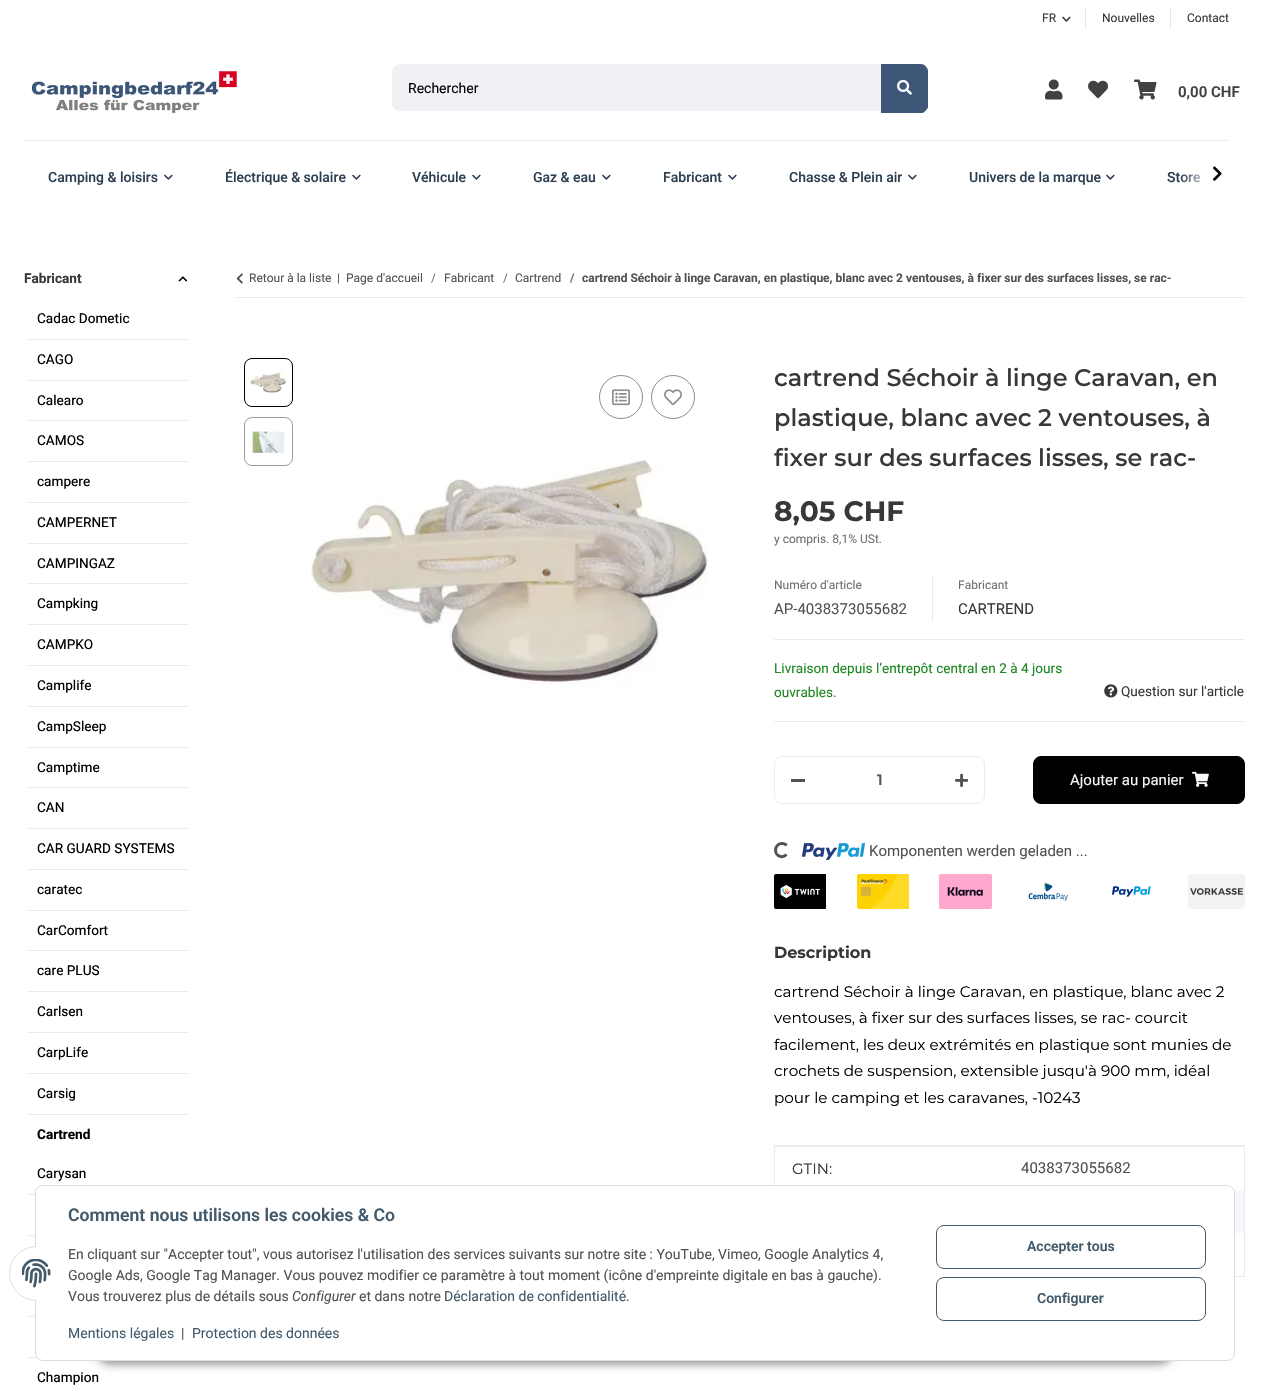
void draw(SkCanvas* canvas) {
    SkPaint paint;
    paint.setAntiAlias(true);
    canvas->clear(0xFFFFFFFF);
    SkFont font1(fontMgr->matchFamilyStyle("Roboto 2", SkFontStyle::Normal()), 12);
    font1.setSubpixel(true);
    paint.setColor(0xFF383838);
    canvas->drawString("FR", 1042, 22, font1, paint);
    canvas->drawImageRect(SkImages::DeferredFromEncodedData(SkData::MakeFromFileName("img1.png")), SkRect::MakeXYWH(1062, 16, 9, 6), SkSamplingOptions());
    paint.setColor(0xFFE6E6E6);
    canvas->drawRect(SkRect::MakeXYWH(1085, 8, 1, 21), paint);
    paint.setColor(0xFF383838);
    canvas->drawString("Nouvelles", 1102, 22, font1, paint);
    paint.setColor(0xFFE6E6E6);
    canvas->drawRect(SkRect::MakeXYWH(1170, 8, 1, 21), paint);
    paint.setColor(0xFF383838);
    canvas->drawString("Contact", 1187, 22, font1, paint);
    canvas->drawImageRect(SkImages::DeferredFromEncodedData(SkData::MakeFromFileName("img2.png")), SkRect::MakeXYWH(31, 71, 206, 42), SkSamplingOptions());
    paint.setColor(0xFFF0F1F4);
    canvas->drawPath(SkPathBuilder().moveTo(400, 64).lineTo(882, 64).lineTo(882, 111).lineTo(400, 111).cubicTo(395.5f, 111, 392, 107.5f, 392, 103).lineTo(392, 72).cubicTo(392, 67.5f, 395.5f, 64, 400, 64).close().detach(), paint);
    SkFont font2(fontMgr->matchFamilyStyle("Roboto 2", SkFontStyle::Normal()), 14);
    font2.setSubpixel(true);
    paint.setColor(0xFF000000);
    canvas->drawString("Rechercher", 408, 93, font2, paint);
    paint.setColor(0xFF3E5678);
    canvas->drawPath(SkPathBuilder().moveTo(881, 64).lineTo(920, 64).cubicTo(924.5f, 64, 928, 67.5f, 928, 72).lineTo(928, 105).cubicTo(928, 109.5f, 924.5f, 113, 920, 113).lineTo(881, 113).close().detach(), paint);
    canvas->drawPath(SkPathBuilder(SkPathFillType::kEvenOdd).moveTo(881, 64).lineTo(881, 113).lineTo(920, 113).cubicTo(921, 113, 923, 113, 924, 112).lineTo(882, 112).lineTo(882, 65).lineTo(924, 65).lineTo(920, 64).close().moveTo(928, 72).lineTo(927, 68).lineTo(927, 109).cubicTo(928, 108, 928, 106, 928, 105).close().detach(), paint);
    canvas->drawImageRect(SkImages::DeferredFromEncodedData(SkData::MakeFromFileName("img3.png")), SkRect::MakeXYWH(897, 79, 15, 16), SkSamplingOptions());
    canvas->drawImageRect(SkImages::DeferredFromEncodedData(SkData::MakeFromFileName("img4.png")), SkRect::MakeXYWH(1045, 79, 18, 21), SkSamplingOptions());
    canvas->drawImageRect(SkImages::DeferredFromEncodedData(SkData::MakeFromFileName("img5.png")), SkRect::MakeXYWH(1088, 80, 20, 19), SkSamplingOptions());
    canvas->drawImageRect(SkImages::DeferredFromEncodedData(SkData::MakeFromFileName("img6.png")), SkRect::MakeXYWH(1134, 79, 23, 21), SkSamplingOptions());
    SkFont font3(fontMgr->matchFamilyStyle("Roboto", SkFontStyle(600, SkFontStyle::kNormal_Width, SkFontStyle::kUpright_Slant)), 15);
    font3.setSubpixel(true);
    paint.setColor(0xFF414141);
    canvas->drawString("0,00 CHF", 1178, 97, font3, paint);
    paint.setColor(0xFFEBEBEB);
    canvas->drawRect(SkRect::MakeXYWH(24, 140, 1204, 1), paint);
    SkFont font4(fontMgr->matchFamilyStyle("Roboto", SkFontStyle(500, SkFontStyle::kNormal_Width, SkFontStyle::kUpright_Slant)), 14);
    font4.setSubpixel(true);
    paint.setColor(0xFF2C3E50);
    canvas->drawString("Camping & loisirs", 48, 182, font4, paint);
    canvas->drawImageRect(SkImages::DeferredFromEncodedData(SkData::MakeFromFileName("img7.png")), SkRect::MakeXYWH(164, 174, 9, 6), SkSamplingOptions());
    canvas->drawString("Électrique & solaire", 225, 182, font4, paint);
    canvas->drawImageRect(SkImages::DeferredFromEncodedData(SkData::MakeFromFileName("img7.png")), SkRect::MakeXYWH(352, 174, 9, 6), SkSamplingOptions());
    canvas->drawString("Véhicule", 412, 182, font4, paint);
    canvas->drawImageRect(SkImages::DeferredFromEncodedData(SkData::MakeFromFileName("img7.png")), SkRect::MakeXYWH(472, 174, 9, 6), SkSamplingOptions());
    canvas->drawString("Gaz & eau", 533, 182, font4, paint);
    canvas->drawImageRect(SkImages::DeferredFromEncodedData(SkData::MakeFromFileName("img7.png")), SkRect::MakeXYWH(602, 174, 9, 6), SkSamplingOptions());
    canvas->drawString("Fabricant", 663, 182, font4, paint);
    canvas->drawImageRect(SkImages::DeferredFromEncodedData(SkData::MakeFromFileName("img7.png")), SkRect::MakeXYWH(728, 174, 9, 6), SkSamplingOptions());
    canvas->drawString("Chasse & Plein air", 789, 182, font4, paint);
    canvas->drawImageRect(SkImages::DeferredFromEncodedData(SkData::MakeFromFileName("img7.png")), SkRect::MakeXYWH(908, 174, 9, 6), SkSamplingOptions());
    canvas->drawString("Univers de la marque", 969, 182, font4, paint);
    canvas->drawImageRect(SkImages::DeferredFromEncodedData(SkData::MakeFromFileName("img7.png")), SkRect::MakeXYWH(1106, 174, 9, 6), SkSamplingOptions());
    canvas->drawString("Store", 1167, 182, font4, paint);
    {
        const SkColor colors[] = {0x03FFFFFF, 0xFFFFFFFF};
        const float stops[] = {0, 0.7f};
        const SkPoint ends[] = {{1180, 175}, {1228, 175}};
        paint.setShader(SkGradientShader::MakeLinear(ends, colors, stops, 2, SkTileMode::kClamp));
        paint.setAlpha(255);
    }
    canvas->drawRect(SkRect::MakeXYWH(1181, 174, 20, 9), paint);
    canvas->drawImageRect(SkImages::DeferredFromEncodedData(SkData::MakeFromFileName("img8.png")), SkRect::MakeXYWH(1213, 166, 9, 15), SkSamplingOptions());
    SkFont font5(fontMgr->matchFamilyStyle("Roboto", SkFontStyle::Bold()), 13.6f);
    font5.setSubpixel(true);
    paint.setShader(nullptr);
    paint.setColor(0xFF383838);
    canvas->drawString("Fabricant", 24, 283, font5, paint);
    canvas->drawImageRect(SkImages::DeferredFromEncodedData(SkData::MakeFromFileName("img9.png")), SkRect::MakeXYWH(178, 276, 10, 6), SkSamplingOptions());
    paint.setColor(0xFFEBEBEB);
    canvas->drawRect(SkRect::MakeXYWH(28, 339, 160, 1), paint);
    SkFont font6(fontMgr->matchFamilyStyle("Roboto", SkFontStyle::Normal()), 13.6f);
    font6.setSubpixel(true);
    paint.setColor(0xFF000000);
    canvas->drawString("Cadac Dometic", 37, 323, font6, paint);
    paint.setColor(0xFFEBEBEB);
    canvas->drawRect(SkRect::MakeXYWH(28, 380, 160, 1), paint);
    paint.setColor(0xFF000000);
    canvas->drawString("CAGO", 37, 364, font6, paint);
    paint.setColor(0xFFEBEBEB);
    canvas->drawRect(SkRect::MakeXYWH(28, 420, 160, 1), paint);
    paint.setColor(0xFF000000);
    canvas->drawString("Calearo", 37, 405, font6, paint);
    paint.setColor(0xFFEBEBEB);
    canvas->drawRect(SkRect::MakeXYWH(28, 461, 160, 1), paint);
    paint.setColor(0xFF000000);
    canvas->drawString("CAMOS", 37, 445, font6, paint);
    paint.setColor(0xFFEBEBEB);
    canvas->drawRect(SkRect::MakeXYWH(28, 502, 160, 1), paint);
    paint.setColor(0xFF000000);
    canvas->drawString("campere", 37, 486, font6, paint);
    paint.setColor(0xFFEBEBEB);
    canvas->drawRect(SkRect::MakeXYWH(28, 543, 160, 1), paint);
    paint.setColor(0xFF000000);
    canvas->drawString("CAMPERNET", 37, 527, font6, paint);
    paint.setColor(0xFFEBEBEB);
    canvas->drawRect(SkRect::MakeXYWH(28, 583, 160, 1), paint);
    paint.setColor(0xFF000000);
    canvas->drawString("CAMPINGAZ", 37, 568, font6, paint);
    paint.setColor(0xFFEBEBEB);
    canvas->drawRect(SkRect::MakeXYWH(28, 624, 160, 1), paint);
    paint.setColor(0xFF000000);
    canvas->drawString("Campking", 37, 608, font6, paint);
    paint.setColor(0xFFEBEBEB);
    canvas->drawRect(SkRect::MakeXYWH(28, 665, 160, 1), paint);
    paint.setColor(0xFF000000);
    canvas->drawString("CAMPKO", 37, 649, font6, paint);
    paint.setColor(0xFFEBEBEB);
    canvas->drawRect(SkRect::MakeXYWH(28, 706, 160, 1), paint);
    paint.setColor(0xFF000000);
    canvas->drawString("Camplife", 37, 690, font6, paint);
    paint.setColor(0xFFEBEBEB);
    canvas->drawRect(SkRect::MakeXYWH(28, 747, 160, 1), paint);
    paint.setColor(0xFF000000);
    canvas->drawString("CampSleep", 37, 731, font6, paint);
    paint.setColor(0xFFEBEBEB);
    canvas->drawRect(SkRect::MakeXYWH(28, 787, 160, 1), paint);
    paint.setColor(0xFF000000);
    canvas->drawString("Camptime", 37, 772, font6, paint);
    paint.setColor(0xFFEBEBEB);
    canvas->drawRect(SkRect::MakeXYWH(28, 828, 160, 1), paint);
    paint.setColor(0xFF000000);
    canvas->drawString("CAN", 37, 812, font6, paint);
    paint.setColor(0xFFEBEBEB);
    canvas->drawRect(SkRect::MakeXYWH(28, 869, 160, 1), paint);
    paint.setColor(0xFF000000);
    canvas->drawString("CAR GUARD SYSTEMS", 37, 853, font6, paint);
    paint.setColor(0xFFEBEBEB);
    canvas->drawRect(SkRect::MakeXYWH(28, 910, 160, 1), paint);
    paint.setColor(0xFF000000);
    canvas->drawString("caratec", 37, 894, font6, paint);
    paint.setColor(0xFFEBEBEB);
    canvas->drawRect(SkRect::MakeXYWH(28, 950, 160, 1), paint);
    paint.setColor(0xFF000000);
    canvas->drawString("CarComfort", 37, 935, font6, paint);
    paint.setColor(0xFFEBEBEB);
    canvas->drawRect(SkRect::MakeXYWH(28, 991, 160, 1), paint);
    paint.setColor(0xFF000000);
    canvas->drawString("care PLUS", 37, 975, font6, paint);
    paint.setColor(0xFFEBEBEB);
    canvas->drawRect(SkRect::MakeXYWH(28, 1032, 160, 1), paint);
    paint.setColor(0xFF000000);
    canvas->drawString("Carlsen", 37, 1016, font6, paint);
    paint.setColor(0xFFEBEBEB);
    canvas->drawRect(SkRect::MakeXYWH(28, 1073, 160, 1), paint);
    paint.setColor(0xFF000000);
    canvas->drawString("CarpLife", 37, 1057, font6, paint);
    paint.setColor(0xFFEBEBEB);
    canvas->drawRect(SkRect::MakeXYWH(28, 1114, 160, 1), paint);
    paint.setColor(0xFF000000);
    canvas->drawString("Carsig", 37, 1098, font6, paint);
    canvas->drawString("Cartrend", 37, 1139, font5, paint);
    paint.setColor(0xFFEBEBEB);
    canvas->drawRect(SkRect::MakeXYWH(28, 1194, 7, 1), paint);
    paint.setColor(0xFF000000);
    canvas->drawString("Carysan", 37, 1178, font6, paint);
    paint.setColor(0xFFEBEBEB);
    canvas->drawRect(SkRect::MakeXYWH(28, 1235, 7, 1), paint);
    canvas->drawRect(SkRect::MakeXYWH(28, 1316, 7, 1), paint);
    canvas->drawRect(SkRect::MakeXYWH(28, 1357, 9, 1), paint);
    paint.setColor(0xFF000000);
    canvas->drawString("Champion", 37, 1382, font6, paint);
    paint.setColor(0xFFEBEBEB);
    canvas->drawRect(SkRect::MakeXYWH(236, 297, 1009, 1), paint);
    canvas->drawImageRect(SkImages::DeferredFromEncodedData(SkData::MakeFromFileName("img10.png")), SkRect::MakeXYWH(236, 273, 7, 11), SkSamplingOptions());
    paint.setColor(0xFF525252);
    canvas->drawString("Retour à la liste", 249, 282, font1, paint);
    canvas->drawString("|", 337, 282, font1, paint);
    canvas->drawString("Page d'accueil", 346, 282, font1, paint);
    paint.setColor(0xFF707070);
    canvas->drawString("/", 431, 282, font1, paint);
    paint.setColor(0xFF525252);
    canvas->drawString("Fabricant", 444, 282, font1, paint);
    paint.setColor(0xFF707070);
    canvas->drawString("/", 503, 282, font1, paint);
    paint.setColor(0xFF525252);
    canvas->drawString("Cartrend", 515, 282, font1, paint);
    SkFont font7(fontMgr->matchFamilyStyle("Roboto", SkFontStyle::Bold()), 12);
    font7.setSubpixel(true);
    paint.setColor(0xFF707070);
    canvas->drawString("/", 570, 282, font7, paint);
    paint.setColor(0xFF525252);
    canvas->drawString("cartrend Séchoir à linge Caravan, en plastique, blanc avec 2 ventouses, à fixer sur des surfaces lisses, se rac-", 582, 282, font7, paint);
    paint.setStyle(SkPaint::kStroke_Style);
    paint.setStrokeWidth(1);
    paint.setColor(0xFF000000);
    canvas->drawRoundRect(SkRect::MakeXYWH(244.5f, 358.5f, 48, 48), 7.5f, 7.5f, paint);
    canvas->drawImageRect(SkImages::DeferredFromEncodedData(SkData::MakeFromFileName("img11.png")), SkRect::MakeXYWH(250, 372, 36, 21), SkSamplingOptions());
    paint.setColor(0xFF9C9C9C);
    canvas->drawRoundRect(SkRect::MakeXYWH(244.5f, 417.5f, 48, 48), 7.5f, 7.5f, paint);
    canvas->drawImageRect(SkImages::DeferredFromEncodedData(SkData::MakeFromFileName("img12.png")), SkRect::MakeXYWH(252, 431, 33, 23), SkSamplingOptions());
    paint.setColor(0xFF8D8D8D);
    canvas->drawCircle(621, 397, 21.5f, paint);
    canvas->drawImageRect(SkImages::DeferredFromEncodedData(SkData::MakeFromFileName("img13.png")), SkRect::MakeXYWH(612, 389, 18, 17), SkSamplingOptions());
    canvas->drawCircle(673, 397, 21.5f, paint);
    canvas->drawImageRect(SkImages::DeferredFromEncodedData(SkData::MakeFromFileName("img14.png")), SkRect::MakeXYWH(664, 389, 18, 17), SkSamplingOptions());
    canvas->drawImageRect(SkImages::DeferredFromEncodedData(SkData::MakeFromFileName("img15.png")), SkRect::MakeXYWH(311, 460, 397, 225), SkSamplingOptions());
    SkFont font8(fontMgr->matchFamilyStyle("Montserrat", SkFontStyle(500, SkFontStyle::kNormal_Width, SkFontStyle::kUpright_Slant)), 24);
    font8.setSubpixel(true);
    paint.setStyle(SkPaint::kFill_Style);
    paint.setColor(0xFF383838);
    canvas->drawString("cartrend Séchoir à linge Caravan, en", 774, 386, font8, paint);
    canvas->drawString("plastique, blanc avec 2 ventouses, à", 774, 426, font8, paint);
    canvas->drawString("fixer sur des surfaces lisses, se rac-", 774, 466, font8, paint);
    SkFont font9(fontMgr->matchFamilyStyle("Montserrat", SkFontStyle::Bold()), 28);
    font9.setSubpixel(true);
    canvas->drawString("8,05 CHF", 774, 521, font9, paint);
    paint.setColor(0xFF707070);
    canvas->drawString("y compris. 8,1% USt.", 774, 543, font1, paint);
    paint.setColor(0xFFEBEBEB);
    canvas->drawRect(SkRect::MakeXYWH(932, 575, 1, 47), paint);
    paint.setColor(0xFF707070);
    canvas->drawString("Numéro d'article", 774, 589, font1, paint);
    SkFont font10(fontMgr->matchFamilyStyle("Roboto 2", SkFontStyle::Normal()), 15);
    font10.setSubpixel(true);
    paint.setColor(0xFF525252);
    canvas->drawString("AP-4038373055682", 774, 614, font10, paint);
    paint.setColor(0xFF707070);
    canvas->drawString("Fabricant", 958, 589, font1, paint);
    paint.setColor(0xFF383838);
    canvas->drawString("CARTREND", 958, 614, font10, paint);
    paint.setColor(0xFFEBEBEB);
    canvas->drawRect(SkRect::MakeXYWH(774, 639, 471, 1), paint);
    canvas->drawRect(SkRect::MakeXYWH(774, 721, 471, 1), paint);
    SkFont font11(fontMgr->matchFamilyStyle("Roboto 2", SkFontStyle::Normal()), 13.6f);
    font11.setSubpixel(true);
    paint.setColor(0xFF1C871E);
    canvas->drawString("Livraison depuis l’entrepôt central en 2 à 4 jours", 774, 673, font11, paint);
    canvas->drawString("ouvrables.", 774, 697, font11, paint);
    canvas->drawImageRect(SkImages::DeferredFromEncodedData(SkData::MakeFromFileName("img16.png")), SkRect::MakeXYWH(1104, 684, 14, 14), SkSamplingOptions());
    paint.setColor(0xFF383838);
    canvas->drawString("Question sur l'article", 1121, 696, font11, paint);
    paint.setStyle(SkPaint::kStroke_Style);
    paint.setColor(0xFFEBEBEB);
    canvas->drawRoundRect(SkRect::MakeXYWH(774.5f, 756.5f, 210, 47), 7.5f, 7.5f, paint);
    paint.setStyle(SkPaint::kFill_Style);
    paint.setColor(0xFF525252);
    canvas->drawRect(SkRect::MakeXYWH(791, 779, 14, 3), paint);
    SkFont font12(fontMgr->matchFamilyStyle("Montserrat", SkFontStyle(600, SkFontStyle::kNormal_Width, SkFontStyle::kUpright_Slant)), 15);
    font12.setSubpixel(true);
    canvas->drawString("1", 877, 785, font12, paint);
    canvas->drawImageRect(SkImages::DeferredFromEncodedData(SkData::MakeFromFileName("img17.png")), SkRect::MakeXYWH(955, 773, 14, 14), SkSamplingOptions());
    paint.setColor(0xFF000000);
    canvas->drawRoundRect(SkRect::MakeXYWH(1033.5f, 756.5f, 211, 47), 7.5f, 7.5f, paint);
    paint.setStyle(SkPaint::kStroke_Style);
    canvas->drawRoundRect(SkRect::MakeXYWH(1033.5f, 756.5f, 211, 47), 7.5f, 7.5f, paint);
    paint.setStyle(SkPaint::kFill_Style);
    paint.setColor(0xFFF5F7FA);
    canvas->drawString("Ajouter au panier", 1070, 785, font10, paint);
    canvas->drawImageRect(SkImages::DeferredFromEncodedData(SkData::MakeFromFileName("img18.png")), SkRect::MakeXYWH(1192, 771, 17, 16), SkSamplingOptions());
    paint.setStyle(SkPaint::kStroke_Style);
    paint.setStrokeWidth(3);
    paint.setColor(0xFF525252);
    canvas->drawPath(SkPathBuilder().moveTo(786.5f, 854.5f).cubicTo(785, 856, 783, 857, 780.5f, 856.5f).cubicTo(773, 855, 774.5f, 843.5f, 782, 843.5f).cubicTo(783.5f, 843.5f, 785.5f, 844, 786.5f, 845.5f).detach(), paint);
    canvas->drawImageRect(SkImages::DeferredFromEncodedData(SkData::MakeFromFileName("img19.png")), SkRect::MakeXYWH(802, 843, 63, 17), SkSamplingOptions());
    paint.setStyle(SkPaint::kFill_Style);
    canvas->drawString("Komponenten werden geladen ...", 869, 856, font10, paint);
    canvas->drawImageRect(SkImages::DeferredFromEncodedData(SkData::MakeFromFileName("img20.png")), SkRect::MakeXYWH(774, 874, 52, 35), SkSamplingOptions());
    canvas->drawImageRect(SkImages::DeferredFromEncodedData(SkData::MakeFromFileName("img21.png")), SkRect::MakeXYWH(857, 874, 52, 35), SkSamplingOptions());
    canvas->drawImageRect(SkImages::DeferredFromEncodedData(SkData::MakeFromFileName("img22.png")), SkRect::MakeXYWH(939, 874, 53, 35), SkSamplingOptions());
    canvas->drawImageRect(SkImages::DeferredFromEncodedData(SkData::MakeFromFileName("img23.png")), SkRect::MakeXYWH(1028, 882, 40, 19), SkSamplingOptions());
    canvas->drawImageRect(SkImages::DeferredFromEncodedData(SkData::MakeFromFileName("img24.png")), SkRect::MakeXYWH(1111, 886, 40, 11), SkSamplingOptions());
    canvas->drawImageRect(SkImages::DeferredFromEncodedData(SkData::MakeFromFileName("img25.png")), SkRect::MakeXYWH(1188, 874, 57, 35), SkSamplingOptions());
    SkFont font13(fontMgr->matchFamilyStyle("Montserrat", SkFontStyle::Bold()), 16);
    font13.setSubpixel(true);
    paint.setColor(0xFF383838);
    canvas->drawString("Description", 774, 958, font13, paint);
    SkFont font14(fontMgr->matchFamilyStyle("Montserrat", SkFontStyle::Normal()), 15.2f);
    font14.setSubpixel(true);
    paint.setColor(0xFF000000);
    canvas->drawString("cartrend Séchoir à linge Caravan, en plastique, blanc avec 2", 774, 997, font14, paint);
    canvas->drawString("ventouses, à fixer sur des surfaces lisses, se rac- courcit", 774, 1023, font14, paint);
    canvas->drawString("facilement, les deux extrémités en plastique sont munies de", 774, 1050, font14, paint);
    canvas->drawString("crochets de suspension, extensible jusqu'à 900 mm, idéal", 774, 1076, font14, paint);
    canvas->drawString("pour le camping et les caravanes, -10243", 774, 1103, font14, paint);
    paint.setColor(0xFFEBEBEB);
    canvas->drawRect(SkRect::MakeXYWH(774, 1145, 471, 2), paint);
    canvas->drawRect(SkRect::MakeXYWH(1244, 1190, 1, 87), paint);
    canvas->drawRect(SkRect::MakeXYWH(1244, 1146, 1, 45), paint);
    canvas->drawRect(SkRect::MakeXYWH(774, 1146, 1, 45), paint);
    SkFont font15(fontMgr->matchFamilyStyle("Montserrat", SkFontStyle::Normal()), 15);
    font15.setSubpixel(true);
    paint.setColor(0xFF383838);
    canvas->drawString("GTIN:", 792, 1174, font15, paint);
    paint.setColor(0xFF525252);
    canvas->drawString("4038373055682", 1021, 1173, font10, paint);
    paint.setColor(0xFFF5F7FA);
    canvas->drawRect(SkRect::MakeXYWH(1234, 1190, 10, 43), paint);
    paint.setColor(0xFFEBEBEB);
    canvas->drawRect(SkRect::MakeXYWH(1235, 1276, 10, 1), paint);
    paint.setColor(0x73000000);
    paint.setMaskFilter(SkMaskFilter::MakeBlur(kNormal_SkBlurStyle, 5));
    canvas->drawRoundRect(SkRect::MakeXYWH(95, 1332, 1079, 32), 16, 16, paint);
    paint.setMaskFilter(nullptr);
    paint.setColor(0xFFFFFFFF);
    canvas->drawRoundRect(SkRect::MakeXYWH(35.5f, 1185.5f, 1199, 175), 7.5f, 7.5f, paint);
    paint.setStyle(SkPaint::kStroke_Style);
    paint.setStrokeWidth(1);
    paint.setColor(0xFFDDDDDD);
    canvas->drawRoundRect(SkRect::MakeXYWH(35.5f, 1185.5f, 1199, 175), 7.5f, 7.5f, paint);
    paint.setStyle(SkPaint::kFill_Style);
    paint.setColor(0xFFFFFFFF);
    canvas->drawCircle(36.5f, 1273.5f, 27, paint);
    paint.setStyle(SkPaint::kStroke_Style);
    paint.setColor(0xFFDDDDDD);
    canvas->drawCircle(36.5f, 1273.5f, 27, paint);
    paint.setStyle(SkPaint::kFill_Style);
    paint.setColor(0xFFFFFFFF);
    canvas->drawRect(SkRect::MakeXYWH(36, 1246, 28, 55), paint);
    canvas->drawImageRect(SkImages::DeferredFromEncodedData(SkData::MakeFromFileName("img26.png")), SkRect::MakeXYWH(22, 1259, 29, 29), SkSamplingOptions());
    SkFont font16(fontMgr->matchFamilyStyle("Roboto", SkFontStyle(600, SkFontStyle::kNormal_Width, SkFontStyle::kUpright_Slant)), 17.6f);
    font16.setSubpixel(true);
    paint.setColor(0xFF435A6B);
    canvas->drawString("Comment nous utilisons les cookies & Co", 68, 1221, font16, paint);
    paint.setColor(0xFF525252);
    canvas->drawString("En cliquant sur \"Accepter tout\", vous autorisez l'utilisation des services suivants sur notre site : YouTube, Vimeo, Google Analytics 4,", 68, 1259, font2, paint);
    canvas->drawString("Google Ads, Google Tag Manager. Vous pouvez modifier ce paramètre à tout moment (icône d'empreinte digitale en bas à gauche).", 68, 1280, font2, paint);
    canvas->drawString("Vous trouverez plus de détails sous", 68, 1301, font2, paint);
    SkFont font17(fontMgr->matchFamilyStyle("Roboto", SkFontStyle::Italic()), 14);
    font17.setSubpixel(true);
    canvas->drawString("Configurer", 292, 1301, font17, paint);
    canvas->drawString("et dans notre", 359, 1301, font2, paint);
    paint.setColor(0xFF435A6B);
    canvas->drawString("Déclaration de confidentialité", 444, 1301, font2, paint);
    paint.setColor(0xFF525252);
    canvas->drawString(".", 626, 1301, font2, paint);
    paint.setColor(0xFF435A6B);
    canvas->drawString("Mentions légales", 68, 1338, font2, paint);
    paint.setColor(0xFF525252);
    canvas->drawString("|", 181, 1338, font2, paint);
    paint.setColor(0xFF435A6B);
    canvas->drawString("Protection des données", 192, 1338, font2, paint);
    paint.setStyle(SkPaint::kStroke_Style);
    canvas->drawRoundRect(SkRect::MakeXYWH(936.5f, 1225.5f, 269, 43), 7.5f, 7.5f, paint);
    SkFont font18(fontMgr->matchFamilyStyle("Roboto", SkFontStyle(600, SkFontStyle::kNormal_Width, SkFontStyle::kUpright_Slant)), 14);
    font18.setSubpixel(true);
    paint.setStyle(SkPaint::kFill_Style);
    canvas->drawString("Accepter tous", 1027, 1251, font18, paint);
    paint.setStyle(SkPaint::kStroke_Style);
    canvas->drawRoundRect(SkRect::MakeXYWH(936.5f, 1277.5f, 269, 43), 7.5f, 7.5f, paint);
    paint.setStyle(SkPaint::kFill_Style);
    canvas->drawString("Configurer", 1037, 1303, font18, paint);
}
